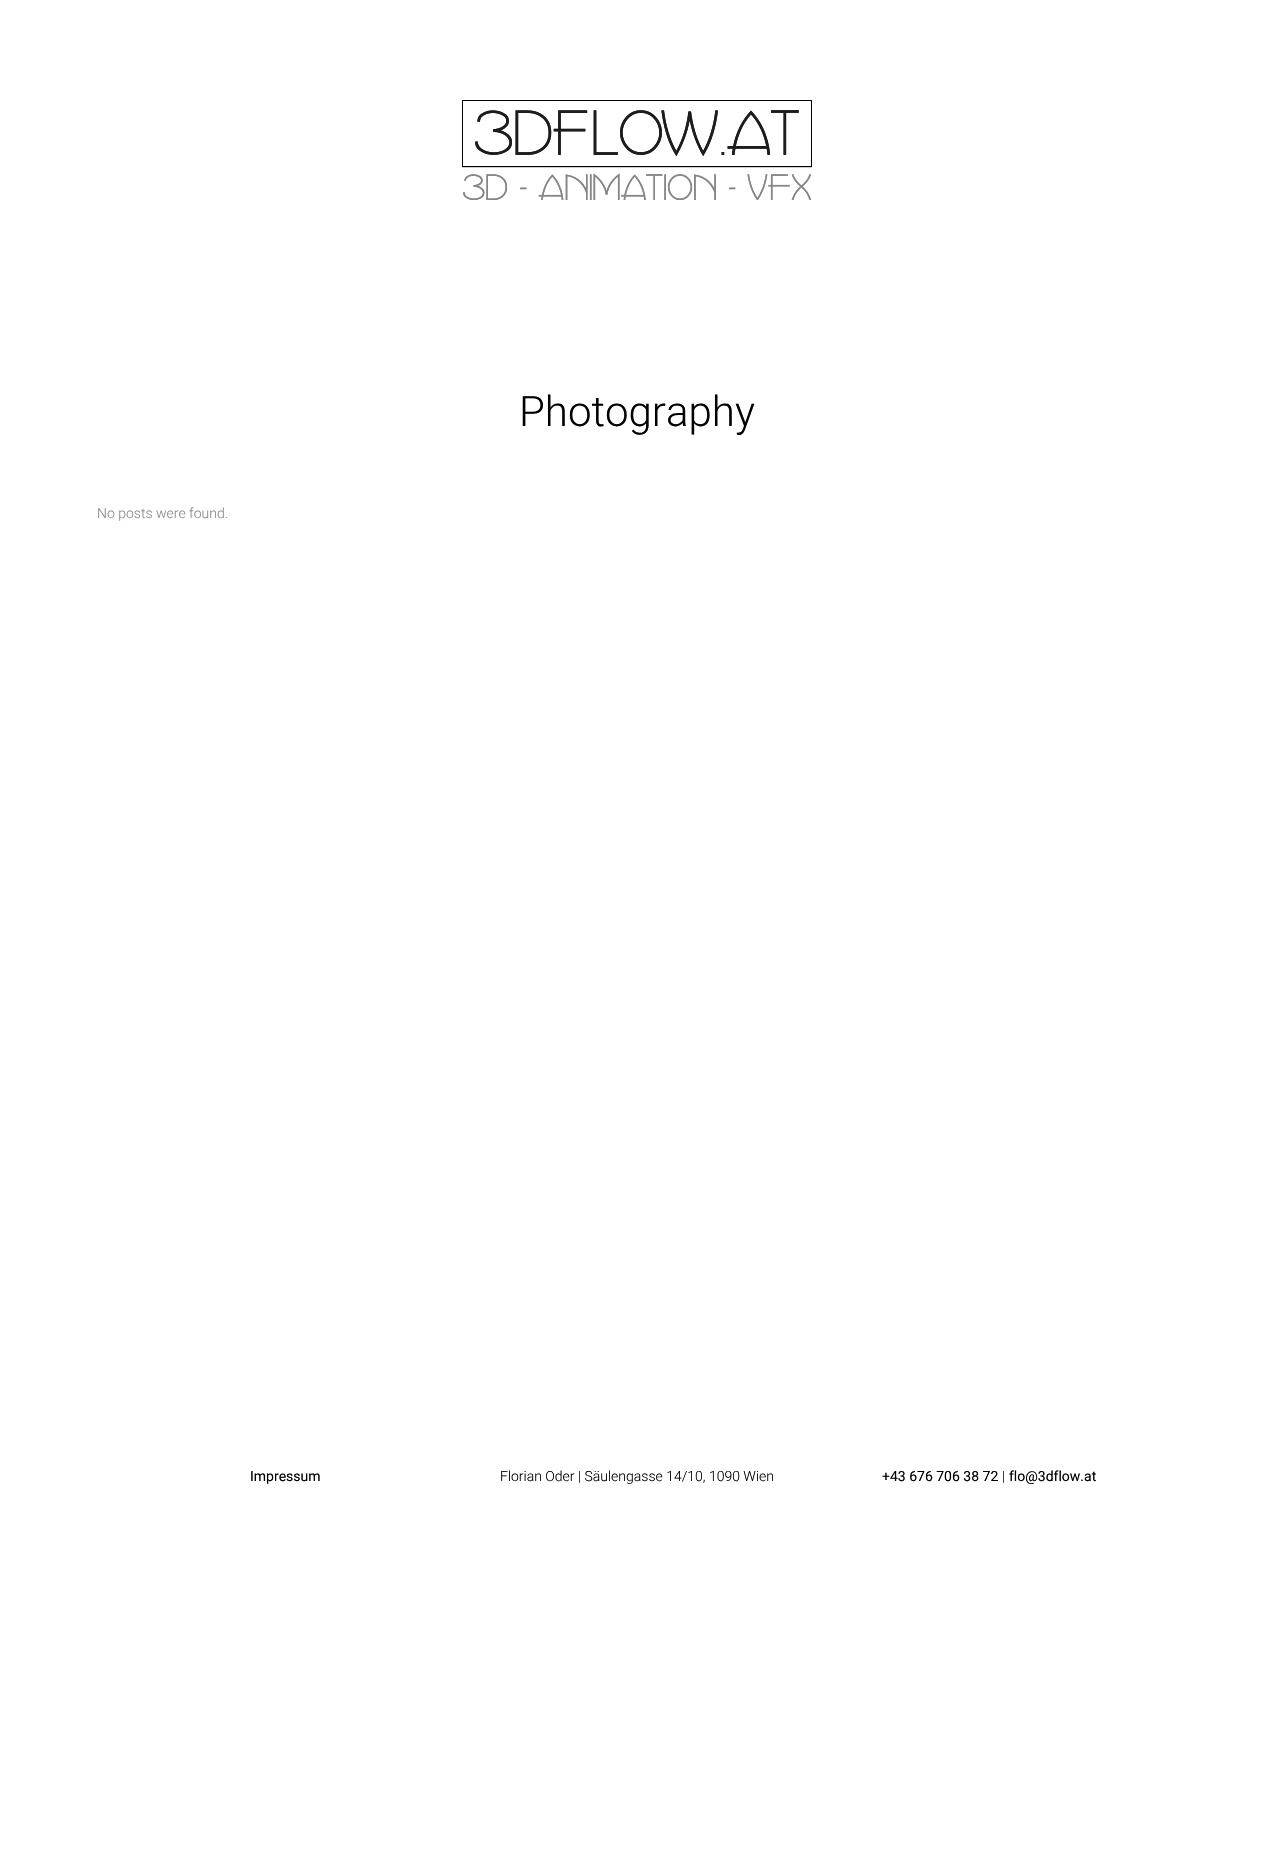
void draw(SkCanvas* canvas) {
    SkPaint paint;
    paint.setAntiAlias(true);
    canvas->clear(0xFFFFFFFF);
    canvas->drawImageRect(SkImages::DeferredFromEncodedData(SkData::MakeFromFileName("img1.png")), SkRect::MakeXYWH(462, 100, 350, 100), SkSamplingOptions());
    SkFont font1(fontMgr->matchFamilyStyle("Roboto", SkFontStyle(300, SkFontStyle::kNormal_Width, SkFontStyle::kUpright_Slant)), 42);
    font1.setSubpixel(true);
    paint.setColor(0xFF000000);
    canvas->drawString("Photography", 519, 426, font1, paint);
    SkFont font2(fontMgr->matchFamilyStyle("Roboto", SkFontStyle(300, SkFontStyle::kNormal_Width, SkFontStyle::kUpright_Slant)), 14);
    font2.setSubpixel(true);
    paint.setColor(0xFF888888);
    canvas->drawString("No posts were found.", 97, 518, font2, paint);
    SkFont font3(fontMgr->matchFamilyStyle("Roboto", SkFontStyle::Normal()), 14);
    font3.setSubpixel(true);
    paint.setColor(0xFF000000);
    canvas->drawString("Impressum", 250, 1481, font3, paint);
    canvas->drawString("Florian Oder | Säulengasse 14/10, 1090 Wien", 500, 1481, font2, paint);
    canvas->drawString("+43 676 706 38 72", 882, 1481, font3, paint);
    canvas->drawString("|", 1002, 1481, font2, paint);
    canvas->drawString("flo@3dflow.at", 1009, 1481, font3, paint);
}
